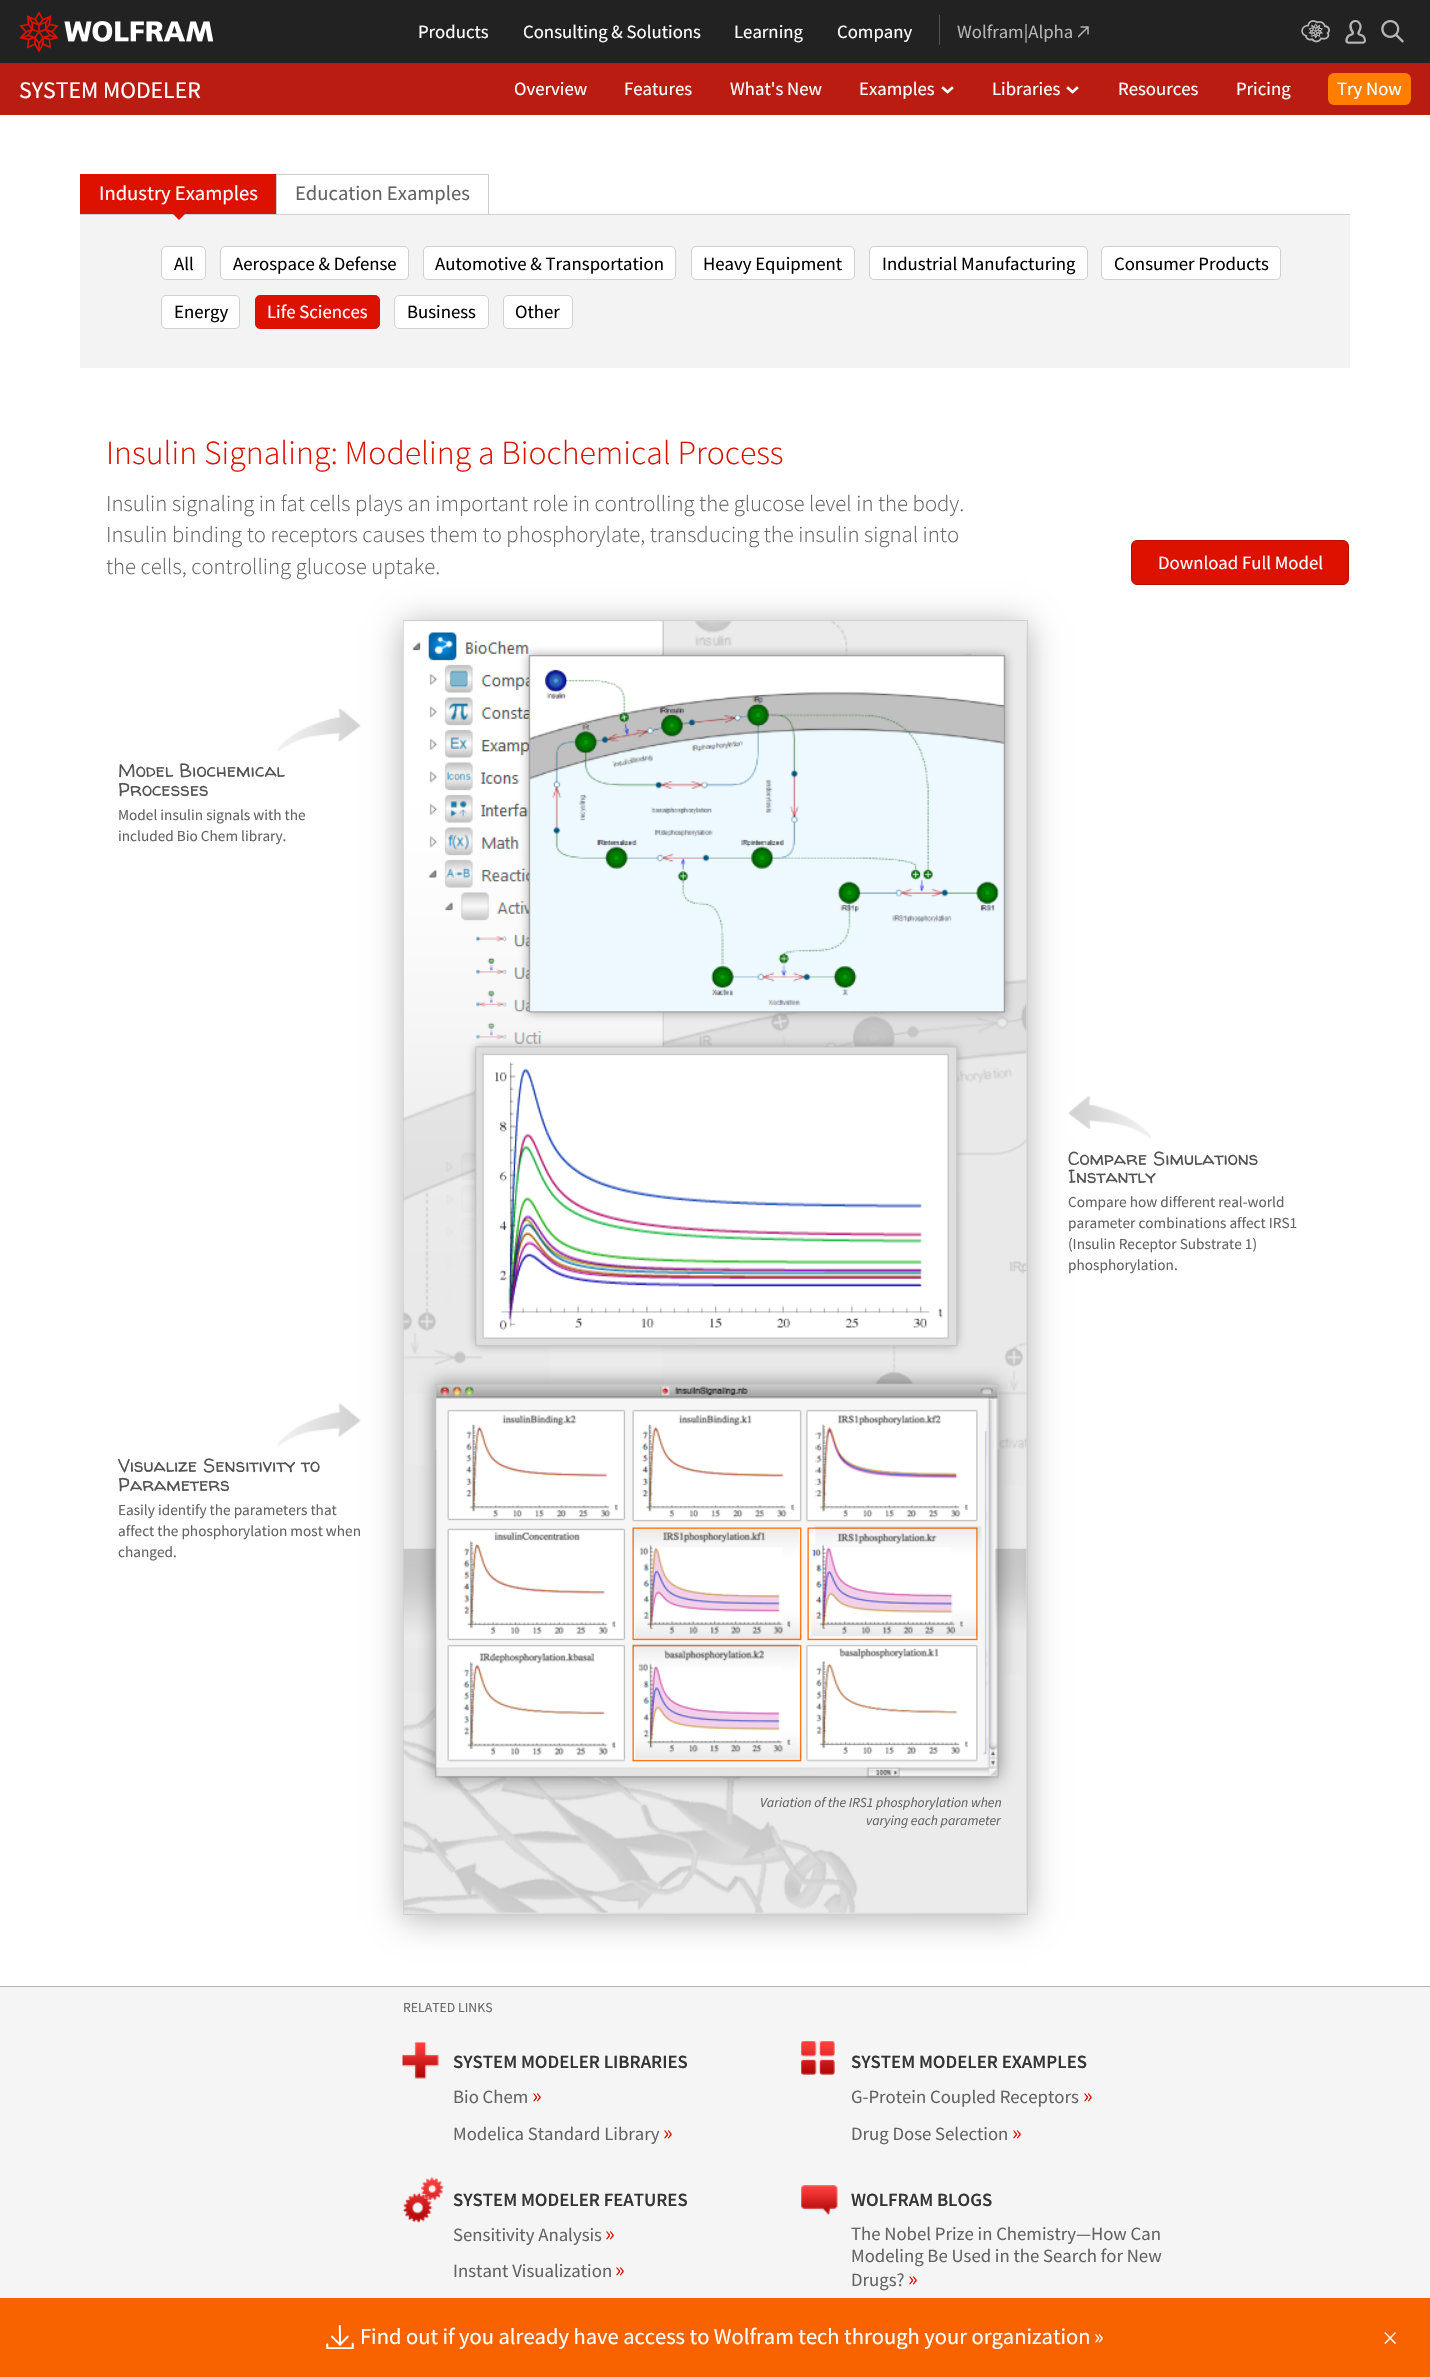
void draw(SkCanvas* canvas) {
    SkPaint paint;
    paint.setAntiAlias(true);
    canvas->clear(0xFFFFFFFF);
    paint.setColor(0xFF222222);
    canvas->drawRect(SkRect::MakeXYWH(0, 0, 1430, 63), paint);
    canvas->drawImageRect(SkImages::DeferredFromEncodedData(SkData::MakeFromFileName("img1.png")), SkRect::MakeXYWH(19, 11, 195, 42), SkSamplingOptions());
    SkFont font1(fontMgr->matchFamilyStyle("Source Sans Pro", SkFontStyle::Normal()), 18.75f);
    font1.setSubpixel(true);
    paint.setColor(0xFFFFFFFF);
    canvas->drawString("Products", 418, 38, font1, paint);
    canvas->drawString("Consulting & Solutions", 523, 38, font1, paint);
    canvas->drawString("Learning", 734, 38, font1, paint);
    canvas->drawString("Company", 837, 38, font1, paint);
    paint.setColor(0xFF525252);
    canvas->drawRect(SkRect::MakeXYWH(939, 15, 1, 30), paint);
    paint.setColor(0xFFB5B5B5);
    canvas->drawString("Wolfram|Alpha", 957, 38, font1, paint);
    canvas->drawImageRect(SkImages::DeferredFromEncodedData(SkData::MakeFromFileName("img2.png")), SkRect::MakeXYWH(1078, 26, 11, 12), SkSamplingOptions());
    canvas->drawImageRect(SkImages::DeferredFromEncodedData(SkData::MakeFromFileName("img3.png")), SkRect::MakeXYWH(1301, 20, 29, 23), SkSamplingOptions());
    canvas->drawImageRect(SkImages::DeferredFromEncodedData(SkData::MakeFromFileName("img4.png")), SkRect::MakeXYWH(1345, 20, 21, 24), SkSamplingOptions());
    canvas->drawImageRect(SkImages::DeferredFromEncodedData(SkData::MakeFromFileName("img5.png")), SkRect::MakeXYWH(1381, 20, 23, 23), SkSamplingOptions());
    paint.setColor(0xFFBA1C12);
    canvas->drawRect(SkRect::MakeXYWH(0, 63, 1430, 52), paint);
    SkFont font2(fontMgr->matchFamilyStyle("Source Sans Pro", SkFontStyle::Normal()), 23.75f);
    font2.setSubpixel(true);
    paint.setColor(0xFFFFFFFF);
    canvas->drawString("SYSTEM MODELER", 19, 98, font2, paint);
    canvas->drawString("Overview", 514, 95, font1, paint);
    canvas->drawString("Features", 624, 95, font1, paint);
    canvas->drawString("What's New", 730, 95, font1, paint);
    canvas->drawString("Examples", 859, 95, font1, paint);
    canvas->drawImageRect(SkImages::DeferredFromEncodedData(SkData::MakeFromFileName("img6.png")), SkRect::MakeXYWH(941, 86, 13, 8), SkSamplingOptions());
    canvas->drawString("Libraries", 992, 95, font1, paint);
    canvas->drawImageRect(SkImages::DeferredFromEncodedData(SkData::MakeFromFileName("img6.png")), SkRect::MakeXYWH(1066, 86, 13, 8), SkSamplingOptions());
    canvas->drawString("Resources", 1118, 95, font1, paint);
    canvas->drawString("Pricing", 1236, 95, font1, paint);
    paint.setColor(0xFFFF7E00);
    canvas->drawRoundRect(SkRect::MakeXYWH(1328, 73, 83, 32), 6, 6, paint);
    paint.setColor(0xFFFFFFFF);
    canvas->drawString("Try Now", 1337, 95, font1, paint);
    paint.setColor(0xFFDD1100);
    canvas->drawRect(SkRect::MakeXYWH(80, 174, 196, 40), paint);
    SkFont font3(fontMgr->matchFamilyStyle("Source Sans Pro", SkFontStyle::Normal()), 20.6f);
    font3.setSubpixel(true);
    paint.setColor(0xFFFFFFFF);
    canvas->drawString("Industry Examples", 99, 200, font3, paint);
    paint.setColor(0xFFF3F3F3);
    canvas->drawRect(SkRect::MakeXYWH(80, 215, 1270, 153), paint);
    paint.setColor(0xFFD0D0D0);
    canvas->drawRect(SkRect::MakeXYWH(80, 214, 1270, 1), paint);
    paint.setColor(0xFFDD1200);
    canvas->drawPath(SkPathBuilder().moveTo(169, 210).lineTo(189, 210).lineTo(179, 220).close().detach(), paint);
    paint.setColor(0xFFCCCCCC);
    canvas->drawRect(SkRect::MakeXYWH(276, 174, 213, 1), paint);
    canvas->drawRect(SkRect::MakeXYWH(488, 174, 1, 40), paint);
    canvas->drawRect(SkRect::MakeXYWH(276, 174, 1, 40), paint);
    paint.setColor(0xFF636363);
    canvas->drawString("Education Examples", 295, 200, font3, paint);
    paint.setColor(0xFFFFFFFF);
    canvas->drawRoundRect(SkRect::MakeXYWH(161.5f, 246.5f, 44, 33), 4.5f, 4.5f, paint);
    paint.setStyle(SkPaint::kStroke_Style);
    paint.setStrokeWidth(1);
    paint.setColor(0xFFD0D0D0);
    canvas->drawRoundRect(SkRect::MakeXYWH(161.5f, 246.5f, 44, 33), 4.5f, 4.5f, paint);
    paint.setStyle(SkPaint::kFill_Style);
    paint.setColor(0xFF000000);
    canvas->drawString("All", 174, 270, font1, paint);
    paint.setColor(0xFFFFFFFF);
    canvas->drawRoundRect(SkRect::MakeXYWH(220.5f, 246.5f, 188, 33), 4.5f, 4.5f, paint);
    paint.setStyle(SkPaint::kStroke_Style);
    paint.setColor(0xFFD0D0D0);
    canvas->drawRoundRect(SkRect::MakeXYWH(220.5f, 246.5f, 188, 33), 4.5f, 4.5f, paint);
    paint.setStyle(SkPaint::kFill_Style);
    paint.setColor(0xFF000000);
    canvas->drawString("Aerospace & Defense", 233, 270, font1, paint);
    paint.setColor(0xFFFFFFFF);
    canvas->drawRoundRect(SkRect::MakeXYWH(423.5f, 246.5f, 252, 33), 4.5f, 4.5f, paint);
    paint.setStyle(SkPaint::kStroke_Style);
    paint.setColor(0xFFD0D0D0);
    canvas->drawRoundRect(SkRect::MakeXYWH(423.5f, 246.5f, 252, 33), 4.5f, 4.5f, paint);
    paint.setStyle(SkPaint::kFill_Style);
    paint.setColor(0xFF000000);
    canvas->drawString("Automotive & Transportation", 435, 270, font1, paint);
    paint.setColor(0xFFFFFFFF);
    canvas->drawRoundRect(SkRect::MakeXYWH(691.5f, 246.5f, 163, 33), 4.5f, 4.5f, paint);
    paint.setStyle(SkPaint::kStroke_Style);
    paint.setColor(0xFFD0D0D0);
    canvas->drawRoundRect(SkRect::MakeXYWH(691.5f, 246.5f, 163, 33), 4.5f, 4.5f, paint);
    paint.setStyle(SkPaint::kFill_Style);
    paint.setColor(0xFF000000);
    canvas->drawString("Heavy Equipment", 703, 270, font1, paint);
    paint.setColor(0xFFFFFFFF);
    canvas->drawRoundRect(SkRect::MakeXYWH(869.5f, 246.5f, 218, 33), 4.5f, 4.5f, paint);
    paint.setStyle(SkPaint::kStroke_Style);
    paint.setColor(0xFFD0D0D0);
    canvas->drawRoundRect(SkRect::MakeXYWH(869.5f, 246.5f, 218, 33), 4.5f, 4.5f, paint);
    paint.setStyle(SkPaint::kFill_Style);
    paint.setColor(0xFF000000);
    canvas->drawString("Industrial Manufacturing", 882, 270, font1, paint);
    paint.setColor(0xFFFFFFFF);
    canvas->drawRoundRect(SkRect::MakeXYWH(1101.5f, 246.5f, 179, 33), 4.5f, 4.5f, paint);
    paint.setStyle(SkPaint::kStroke_Style);
    paint.setColor(0xFFD0D0D0);
    canvas->drawRoundRect(SkRect::MakeXYWH(1101.5f, 246.5f, 179, 33), 4.5f, 4.5f, paint);
    paint.setStyle(SkPaint::kFill_Style);
    paint.setColor(0xFF000000);
    canvas->drawString("Consumer Products", 1114, 270, font1, paint);
    paint.setColor(0xFFFFFFFF);
    canvas->drawRoundRect(SkRect::MakeXYWH(161.5f, 295.5f, 78, 33), 4.5f, 4.5f, paint);
    paint.setStyle(SkPaint::kStroke_Style);
    paint.setColor(0xFFD0D0D0);
    canvas->drawRoundRect(SkRect::MakeXYWH(161.5f, 295.5f, 78, 33), 4.5f, 4.5f, paint);
    paint.setStyle(SkPaint::kFill_Style);
    paint.setColor(0xFF000000);
    canvas->drawString("Energy", 174, 318, font1, paint);
    paint.setColor(0xFFDD1100);
    canvas->drawRoundRect(SkRect::MakeXYWH(255.5f, 295.5f, 124, 33), 4.5f, 4.5f, paint);
    paint.setStyle(SkPaint::kStroke_Style);
    canvas->drawRoundRect(SkRect::MakeXYWH(255.5f, 295.5f, 124, 33), 4.5f, 4.5f, paint);
    paint.setStyle(SkPaint::kFill_Style);
    paint.setColor(0xFFFFFFFF);
    canvas->drawString("Life Sciences", 267, 318, font1, paint);
    canvas->drawRoundRect(SkRect::MakeXYWH(394.5f, 295.5f, 94, 33), 4.5f, 4.5f, paint);
    paint.setStyle(SkPaint::kStroke_Style);
    paint.setColor(0xFFD0D0D0);
    canvas->drawRoundRect(SkRect::MakeXYWH(394.5f, 295.5f, 94, 33), 4.5f, 4.5f, paint);
    paint.setStyle(SkPaint::kFill_Style);
    paint.setColor(0xFF000000);
    canvas->drawString("Business", 407, 318, font1, paint);
    paint.setColor(0xFFFFFFFF);
    canvas->drawRoundRect(SkRect::MakeXYWH(503.5f, 295.5f, 69, 33), 4.5f, 4.5f, paint);
    paint.setStyle(SkPaint::kStroke_Style);
    paint.setColor(0xFFD0D0D0);
    canvas->drawRoundRect(SkRect::MakeXYWH(503.5f, 295.5f, 69, 33), 4.5f, 4.5f, paint);
    paint.setStyle(SkPaint::kFill_Style);
    paint.setColor(0xFF000000);
    canvas->drawString("Other", 515, 318, font1, paint);
    SkFont font4(fontMgr->matchFamilyStyle("Source Sans Pro", SkFontStyle(300, SkFontStyle::kNormal_Width, SkFontStyle::kUpright_Slant)), 33.75f);
    font4.setSubpixel(true);
    paint.setColor(0xFFDD1100);
    canvas->drawString("Insulin Signaling: Modeling a Biochemical Process", 106, 464, font4, paint);
    SkFont font5(fontMgr->matchFamilyStyle("Source Sans Pro", SkFontStyle(300, SkFontStyle::kNormal_Width, SkFontStyle::kUpright_Slant)), 22.7f);
    font5.setSubpixel(true);
    paint.setColor(0xFF636363);
    canvas->drawString("Insulin signaling in fat cells plays an important role in controlling the glucose level in the body.", 106, 511, font5, paint);
    canvas->drawString("Insulin binding to receptors causes them to phosphorylate, transducing the insulin signal into", 106, 542, font5, paint);
    canvas->drawString("the cells, controlling glucose uptake.", 106, 574, font5, paint);
    paint.setColor(0xFFDD1100);
    canvas->drawRoundRect(SkRect::MakeXYWH(1131.5f, 540.5f, 217, 44), 5.5f, 5.5f, paint);
    paint.setStyle(SkPaint::kStroke_Style);
    paint.setColor(0xFFB00F00);
    canvas->drawRoundRect(SkRect::MakeXYWH(1131.5f, 540.5f, 217, 44), 5.5f, 5.5f, paint);
    paint.setStyle(SkPaint::kFill_Style);
    paint.setColor(0xFFFFFFFF);
    canvas->drawString("Download Full Model", 1158, 569, font1, paint);
    canvas->drawImageRect(SkImages::DeferredFromEncodedData(SkData::MakeFromFileName("img7.png")), SkRect::MakeXYWH(277, 708, 84, 43), SkSamplingOptions());
    SkFont font6(fontMgr->matchFamilyStyle("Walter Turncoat", SkFontStyle::Normal()), 18.75f);
    font6.setSubpixel(true);
    paint.setColor(0xFF535353);
    canvas->drawString("Model Biochemical", 118, 777, font6, paint);
    canvas->drawString("Processes", 118, 796, font6, paint);
    SkFont font7(fontMgr->matchFamilyStyle("Source Sans Pro", SkFontStyle::Normal()), 15.25f);
    font7.setSubpixel(true);
    paint.setColor(0xFF636363);
    canvas->drawString("Model insulin signals with the", 118, 820, font7, paint);
    canvas->drawString("included Bio Chem library.", 118, 841, font7, paint);
    canvas->drawImageRect(SkImages::DeferredFromEncodedData(SkData::MakeFromFileName("img7.png")), SkRect::MakeXYWH(277, 1403, 84, 43), SkSamplingOptions());
    paint.setColor(0xFF535353);
    canvas->drawString("Visualize Sensitivity to", 118, 1472, font6, paint);
    canvas->drawString("Parameters", 118, 1491, font6, paint);
    paint.setColor(0xFF636363);
    canvas->drawString("Easily identify the parameters that", 118, 1515, font7, paint);
    canvas->drawString("affect the phosphorylation most when", 118, 1536, font7, paint);
    canvas->drawString("changed.", 118, 1557, font7, paint);
    paint.setColor(0xFFB3B3B3);
    paint.setMaskFilter(SkMaskFilter::MakeBlur(kNormal_SkBlurStyle, 15.5f));
    canvas->drawRect(SkRect::MakeXYWH(403, 624, 625, 1295), paint);
    paint.setMaskFilter(nullptr);
    canvas->drawImageRect(SkImages::DeferredFromEncodedData(SkData::MakeFromFileName("img8.png")), SkRect::MakeXYWH(1068, 1096, 83, 43), SkSamplingOptions());
    paint.setColor(0xFF535353);
    canvas->drawString("Compare Simulations", 1068, 1165, font6, paint);
    canvas->drawString("Instantly", 1068, 1183, font6, paint);
    paint.setColor(0xFF636363);
    canvas->drawString("Compare how different real-world", 1068, 1207, font7, paint);
    canvas->drawString("parameter combinations affect IRS1", 1068, 1228, font7, paint);
    canvas->drawString("(Insulin Receptor Substrate 1)", 1068, 1249, font7, paint);
    canvas->drawString("phosphorylation.", 1068, 1270, font7, paint);
    paint.setStyle(SkPaint::kStroke_Style);
    paint.setColor(0xFFCFCFCF);
    canvas->drawRect(SkRect::MakeXYWH(403.5f, 620.5f, 624, 1294), paint);
    canvas->drawImageRect(SkImages::DeferredFromEncodedData(SkData::MakeFromFileName("img9.png")), SkRect::MakeXYWH(403, 621, 624, 1293), SkSamplingOptions());
    SkFont font8(fontMgr->matchFamilyStyle("Source Sans Pro", SkFontStyle::Italic()), 13.75f);
    font8.setSubpixel(true);
    paint.setStyle(SkPaint::kFill_Style);
    paint.setColor(0xFF636363);
    canvas->drawString("Variation of the IRS1 phosphorylation when", 760, 1807, font8, paint);
    canvas->drawString("varying each parameter", 866, 1825, font8, paint);
    paint.setColor(0xFFF5F5F5);
    canvas->drawRect(SkRect::MakeXYWH(0, 1987, 1430, 311), paint);
    paint.setColor(0xFFB3B3B3);
    canvas->drawRect(SkRect::MakeXYWH(0, 1986, 1430, 1), paint);
    SkFont font9(fontMgr->matchFamilyStyle("Source Sans Pro", SkFontStyle::Normal()), 13.75f);
    font9.setSubpixel(true);
    paint.setColor(0xFF696969);
    canvas->drawString("RELATED LINKS", 403, 2012, font9, paint);
    canvas->drawImageRect(SkImages::DeferredFromEncodedData(SkData::MakeFromFileName("img10.png")), SkRect::MakeXYWH(402, 2041, 37, 38), SkSamplingOptions());
    SkFont font10(fontMgr->matchFamilyStyle("Source Sans Pro", SkFontStyle(600, SkFontStyle::kNormal_Width, SkFontStyle::kUpright_Slant)), 18.75f);
    font10.setSubpixel(true);
    paint.setColor(0xFF353535);
    canvas->drawString("SYSTEM MODELER LIBRARIES", 453, 2068, font10, paint);
    paint.setColor(0xFF636363);
    canvas->drawString("Bio Chem", 453, 2103, font1, paint);
    SkFont font11(fontMgr->matchFamilyStyle("Source Sans Pro", SkFontStyle::Normal()), 22.5f);
    font11.setSubpixel(true);
    paint.setColor(0xFFDD1100);
    canvas->drawString("»", 532, 2103, font11, paint);
    paint.setColor(0xFF636363);
    canvas->drawString("Modelica Standard Library", 453, 2140, font1, paint);
    paint.setColor(0xFFDD1100);
    canvas->drawString("»", 663, 2140, font11, paint);
    canvas->drawImageRect(SkImages::DeferredFromEncodedData(SkData::MakeFromFileName("img11.png")), SkRect::MakeXYWH(801, 2041, 34, 34), SkSamplingOptions());
    paint.setColor(0xFF353535);
    canvas->drawString("SYSTEM MODELER EXAMPLES", 851, 2068, font10, paint);
    paint.setColor(0xFF636363);
    canvas->drawString("G-Protein Coupled Receptors", 851, 2103, font1, paint);
    paint.setColor(0xFFDD1100);
    canvas->drawString("»", 1083, 2103, font11, paint);
    paint.setColor(0xFF636363);
    canvas->drawString("Drug Dose Selection", 851, 2140, font1, paint);
    paint.setColor(0xFFDD1100);
    canvas->drawString("»", 1012, 2140, font11, paint);
    canvas->drawImageRect(SkImages::DeferredFromEncodedData(SkData::MakeFromFileName("img12.png")), SkRect::MakeXYWH(403, 2177, 41, 46), SkSamplingOptions());
    paint.setColor(0xFF353535);
    canvas->drawString("SYSTEM MODELER FEATURES", 453, 2206, font10, paint);
    paint.setColor(0xFF636363);
    canvas->drawString("Sensitivity Analysis", 453, 2241, font1, paint);
    paint.setColor(0xFFDD1100);
    canvas->drawString("»", 605, 2241, font11, paint);
    paint.setColor(0xFF636363);
    canvas->drawString("Instant Visualization", 453, 2277, font1, paint);
    paint.setColor(0xFFDD1100);
    canvas->drawString("»", 615, 2277, font11, paint);
    canvas->drawImageRect(SkImages::DeferredFromEncodedData(SkData::MakeFromFileName("img13.png")), SkRect::MakeXYWH(801, 2185, 37, 30), SkSamplingOptions());
    paint.setColor(0xFF353535);
    canvas->drawString("WOLFRAM BLOGS", 851, 2206, font10, paint);
    paint.setColor(0xFF636363);
    canvas->drawString("The Nobel Prize in Chemistry—How Can", 851, 2240, font1, paint);
    canvas->drawString("Modeling Be Used in the Search for New", 851, 2262, font1, paint);
    canvas->drawString("Drugs?", 851, 2286, font1, paint);
    paint.setColor(0xFFDD1100);
    canvas->drawString("»", 908, 2286, font11, paint);
    paint.setColor(0xFFF86300);
    canvas->drawRect(SkRect::MakeXYWH(0, 2298, 1430, 79), paint);
    canvas->drawImageRect(SkImages::DeferredFromEncodedData(SkData::MakeFromFileName("img14.png")), SkRect::MakeXYWH(326, 2325, 28, 24), SkSamplingOptions());
    paint.setColor(0xFFFFFFFF);
    canvas->drawString("Find out if you already have access to Wolfram tech through your organization", 360, 2344, font11, paint);
    canvas->drawString("»", 1094, 2344, font11, paint);
    SkFont font12(fontMgr->matchFamilyStyle("Source Sans Pro", SkFontStyle(300, SkFontStyle::kNormal_Width, SkFontStyle::kUpright_Slant)), 30);
    font12.setSubpixel(true);
    canvas->drawString("×", 1383, 2348, font12, paint);
}
